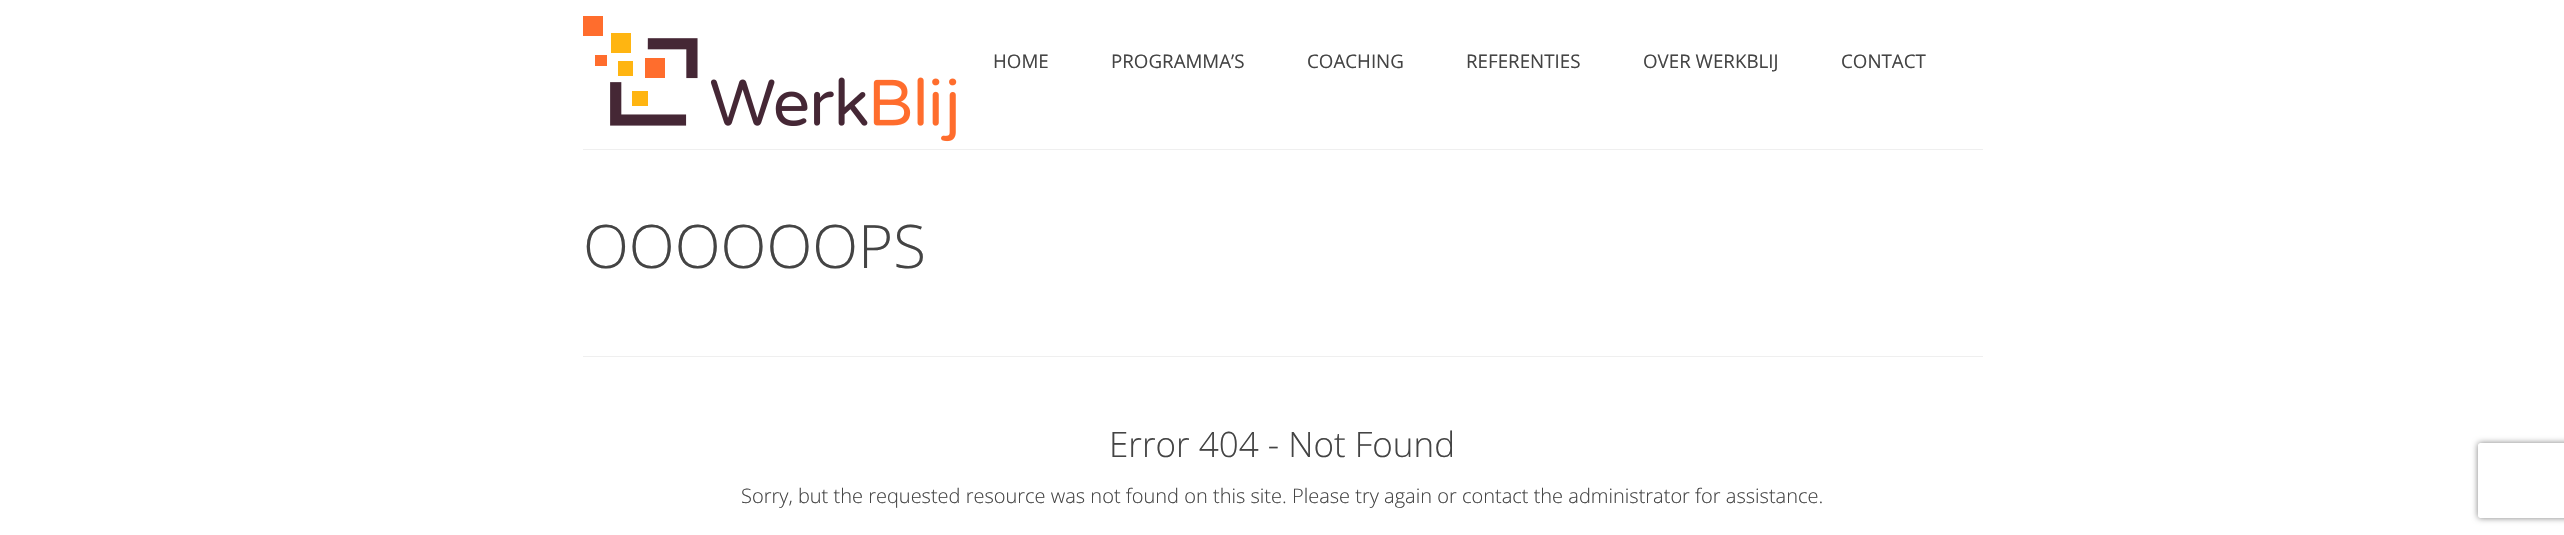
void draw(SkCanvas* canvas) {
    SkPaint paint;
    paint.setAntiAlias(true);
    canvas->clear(0xFFFFFFFF);
    canvas->drawImageRect(SkImages::DeferredFromEncodedData(SkData::MakeFromFileName("img1.png")), SkRect::MakeXYWH(583, 16, 374, 126), SkSamplingOptions());
    SkFont font1(fontMgr->matchFamilyStyle("Open Sans", SkFontStyle::Normal()), 18.75f);
    font1.setSubpixel(true);
    paint.setColor(0xFF444444);
    canvas->drawString("HOME", 993, 68, font1, paint);
    canvas->drawString("PROGRAMMA’S", 1111, 68, font1, paint);
    canvas->drawString("COACHING", 1307, 68, font1, paint);
    canvas->drawString("REFERENTIES", 1466, 68, font1, paint);
    canvas->drawString("OVER WERKBLIJ", 1643, 68, font1, paint);
    canvas->drawString("CONTACT", 1841, 68, font1, paint);
    paint.setColor(0xFFEFEFEF);
    canvas->drawRect(SkRect::MakeXYWH(583, 149, 1400, 1), paint);
    canvas->drawRect(SkRect::MakeXYWH(583, 356, 1400, 1), paint);
    SkFont font2(fontMgr->matchFamilyStyle("Open Sans", SkFontStyle(300, SkFontStyle::kNormal_Width, SkFontStyle::kUpright_Slant)), 60);
    font2.setSubpixel(true);
    paint.setColor(0xFF444444);
    canvas->drawString("OOOOOOPS", 583, 268, font2, paint);
    SkFont font3(fontMgr->matchFamilyStyle("Open Sans", SkFontStyle(300, SkFontStyle::kNormal_Width, SkFontStyle::kUpright_Slant)), 35);
    font3.setSubpixel(true);
    canvas->drawString("Error 404 - Not Found", 1109, 457, font3, paint);
    SkFont font4(fontMgr->matchFamilyStyle("Open Sans", SkFontStyle(300, SkFontStyle::kNormal_Width, SkFontStyle::kUpright_Slant)), 20);
    font4.setSubpixel(true);
    canvas->drawString("Sorry, but the requested resource was not found on this site. Please try again or contact the administrator for assistance.", 741, 503, font4, paint);
    canvas->save();
    canvas->clipPath(SkPathBuilder(SkPathFillType::kEvenOdd).moveTo(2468, 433).lineTo(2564, 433).lineTo(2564, 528).lineTo(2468, 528).close().moveTo(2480.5f, 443).lineTo(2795.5f, 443).cubicTo(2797, 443, 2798, 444, 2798, 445.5f).lineTo(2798, 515.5f).cubicTo(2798, 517, 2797, 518, 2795.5f, 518).lineTo(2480.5f, 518).cubicTo(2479, 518, 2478, 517, 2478, 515.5f).lineTo(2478, 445.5f).cubicTo(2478, 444, 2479, 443, 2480.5f, 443).close().detach(), true);
    paint.setColor(0xFF808080);
    paint.setMaskFilter(SkMaskFilter::MakeBlur(kNormal_SkBlurStyle, 3));
    canvas->drawRoundRect(SkRect::MakeXYWH(2478, 443, 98, 75), 2.5f, 2.5f, paint);
    paint.setMaskFilter(nullptr);
    canvas->restore();
}
